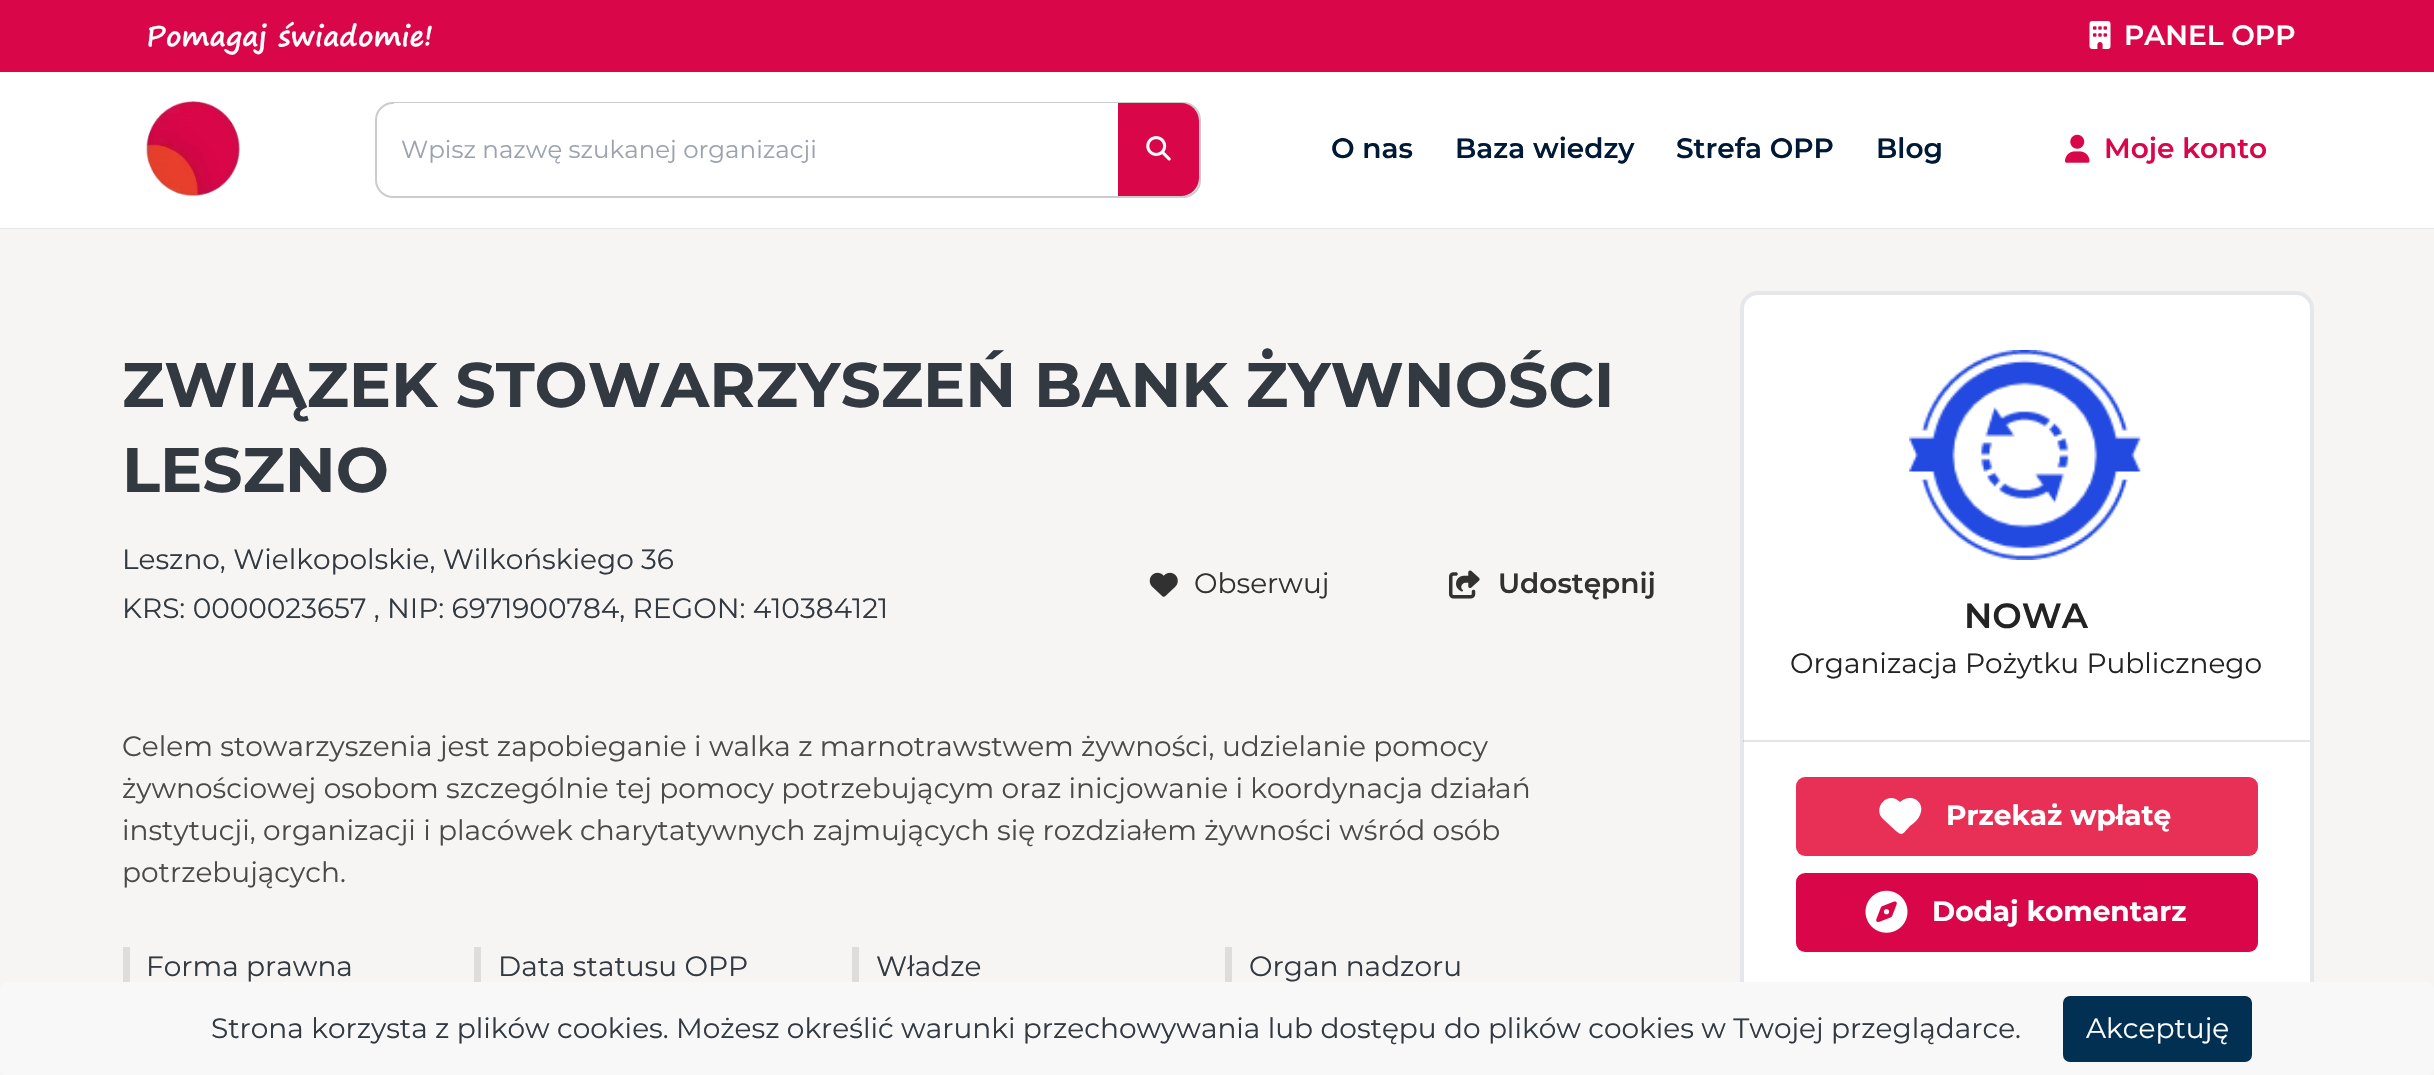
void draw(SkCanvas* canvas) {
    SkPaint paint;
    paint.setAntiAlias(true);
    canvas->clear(0xFFFFFFFF);
    paint.setColor(0xFFD90649);
    canvas->drawRect(SkRect::MakeXYWH(0, 0, 2434, 72), paint);
    SkFont font1(fontMgr->matchFamilyStyle("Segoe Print", SkFontStyle::Bold()), 28);
    font1.setSubpixel(true);
    paint.setColor(0xFFFFFFFF);
    canvas->drawString("Pomagaj świadomie!", 146, 46, font1, paint);
    canvas->drawImageRect(SkImages::DeferredFromEncodedData(SkData::MakeFromFileName("img1.png")), SkRect::MakeXYWH(2089, 21, 22, 28), SkSamplingOptions());
    SkFont font2(fontMgr->matchFamilyStyle("Montserrat", SkFontStyle(600, SkFontStyle::kNormal_Width, SkFontStyle::kUpright_Slant)), 28);
    font2.setSubpixel(true);
    canvas->drawString("PANEL OPP", 2124, 45, font2, paint);
    paint.setColor(0xFFE5E7EB);
    canvas->drawRect(SkRect::MakeXYWH(0, 228, 2434, 1), paint);
    canvas->drawImageRect(SkImages::DeferredFromEncodedData(SkData::MakeFromFileName("img2.png")), SkRect::MakeXYWH(146, 101, 94, 96), SkSamplingOptions());
    paint.setStyle(SkPaint::kStroke_Style);
    paint.setStrokeWidth(2);
    paint.setColor(0xFFCCCCCC);
    canvas->drawRoundRect(SkRect::MakeXYWH(376, 103, 824, 94), 17, 17, paint);
    paint.setStyle(SkPaint::kFill_Style);
    paint.setColor(0xFFFFFFFF);
    canvas->drawRect(SkRect::MakeXYWH(394, 103, 724, 1), paint);
    SkFont font3(fontMgr->matchFamilyStyle("Montserrat", SkFontStyle::Normal()), 24.5f);
    font3.setSubpixel(true);
    paint.setColor(0xFF9CA3AF);
    canvas->drawString("Wpisz nazwę szukanej organizacji", 401, 158, font3, paint);
    paint.setColor(0xFFD90649);
    canvas->drawPath(SkPathBuilder().moveTo(1118, 103).lineTo(1181, 103).cubicTo(1191, 103, 1199, 111, 1199, 121).lineTo(1199, 178).cubicTo(1199, 188, 1191, 196, 1181, 196).lineTo(1118, 196).close().detach(), paint);
    canvas->drawImageRect(SkImages::DeferredFromEncodedData(SkData::MakeFromFileName("img3.png")), SkRect::MakeXYWH(1146, 136, 25, 25), SkSamplingOptions());
    paint.setColor(0xFF001936);
    canvas->drawString("O nas", 1331, 158, font2, paint);
    canvas->drawString("Baza wiedzy", 1455, 158, font2, paint);
    canvas->drawString("Strefa OPP", 1676, 158, font2, paint);
    canvas->drawString("Blog", 1876, 158, font2, paint);
    canvas->drawImageRect(SkImages::DeferredFromEncodedData(SkData::MakeFromFileName("img4.png")), SkRect::MakeXYWH(2065, 134, 25, 29), SkSamplingOptions());
    paint.setColor(0xFFD90649);
    canvas->drawString("Moje konto", 2104, 158, font2, paint);
    paint.setColor(0xFFF7F5F3);
    canvas->drawRect(SkRect::MakeXYWH(0, 229, 2434, 846), paint);
    SkFont font4(fontMgr->matchFamilyStyle("Montserrat", SkFontStyle::Bold()), 63);
    font4.setSubpixel(true);
    paint.setColor(0xFF323941);
    canvas->drawString("ZWIĄZEK STOWARZYSZEŃ BANK ŻYWNOŚCI", 122, 407, font4, paint);
    canvas->drawString("LESZNO", 122, 492, font4, paint);
    SkFont font5(fontMgr->matchFamilyStyle("Montserrat", SkFontStyle::Normal()), 28);
    font5.setSubpixel(true);
    canvas->drawString("Leszno, Wielkopolskie, Wilkońskiego 36", 122, 569, font5, paint);
    canvas->drawString("KRS: 0000023657 , NIP: 6971900784, REGON: 410384121", 122, 618, font5, paint);
    canvas->drawImageRect(SkImages::DeferredFromEncodedData(SkData::MakeFromFileName("img5.png")), SkRect::MakeXYWH(1149, 572, 29, 25), SkSamplingOptions());
    paint.setColor(0xFF313131);
    canvas->drawString("Obserwuj", 1194, 593, font5, paint);
    canvas->drawImageRect(SkImages::DeferredFromEncodedData(SkData::MakeFromFileName("img6.png")), SkRect::MakeXYWH(1449, 570, 31, 29), SkSamplingOptions());
    canvas->drawString("Udostępnij", 1498, 593, font2, paint);
    paint.setColor(0xFF4A4A49);
    canvas->drawString("Celem stowarzyszenia jest zapobieganie i walka z marnotrawstwem żywności, udzielanie pomocy", 122, 756, font5, paint);
    canvas->drawString("żywnościowej osobom szczególnie tej pomocy potrzebującym oraz inicjowanie i koordynacja działań", 122, 798, font5, paint);
    canvas->drawString("instytucji, organizacji i placówek charytatywnych zajmujących się rozdziałem żywności wśród osób", 122, 840, font5, paint);
    canvas->drawString("potrzebujących.", 122, 882, font5, paint);
    paint.setColor(0xFFDEDDDB);
    canvas->drawRect(SkRect::MakeXYWH(123, 947, 7, 35), paint);
    paint.setColor(0xFF323941);
    canvas->drawString("Forma prawna", 146, 976, font5, paint);
    paint.setColor(0xFFDEDDDB);
    canvas->drawRect(SkRect::MakeXYWH(474, 947, 7, 35), paint);
    paint.setColor(0xFF323941);
    canvas->drawString("Data statusu OPP", 498, 976, font5, paint);
    paint.setColor(0xFFDEDDDB);
    canvas->drawRect(SkRect::MakeXYWH(852, 947, 7, 35), paint);
    paint.setColor(0xFF323941);
    canvas->drawString("Władze", 876, 976, font5, paint);
    paint.setColor(0xFFDEDDDB);
    canvas->drawRect(SkRect::MakeXYWH(1225, 947, 7, 35), paint);
    paint.setColor(0xFF323941);
    canvas->drawString("Organ nadzoru", 1249, 976, font5, paint);
    paint.setColor(0xFFFFFFFF);
    canvas->drawRoundRect(SkRect::MakeXYWH(1742, 293, 570, 713), 16, 16, paint);
    paint.setStyle(SkPaint::kStroke_Style);
    paint.setStrokeWidth(4);
    paint.setColor(0xFFE5E7EB);
    canvas->drawRoundRect(SkRect::MakeXYWH(1742, 293, 570, 713), 16, 16, paint);
    canvas->drawImageRect(SkImages::DeferredFromEncodedData(SkData::MakeFromFileName("img7.png")), SkRect::MakeXYWH(1909, 350, 232, 210), SkSamplingOptions());
    SkFont font6(fontMgr->matchFamilyStyle("Montserrat", SkFontStyle(600, SkFontStyle::kNormal_Width, SkFontStyle::kUpright_Slant)), 35);
    font6.setSubpixel(true);
    paint.setStyle(SkPaint::kFill_Style);
    paint.setColor(0xFF232323);
    canvas->drawString("NOWA", 1964, 628, font6, paint);
    canvas->drawString("Organizacja Pożytku Publicznego", 1790, 673, font5, paint);
    paint.setColor(0x1A000000);
    canvas->drawRect(SkRect::MakeXYWH(1743, 740, 567, 2), paint);
    paint.setColor(0xFFE83057);
    canvas->drawRoundRect(SkRect::MakeXYWH(1796, 777, 462, 79), 9, 9, paint);
    paint.setColor(0xFFFFFFFF);
    canvas->drawPath(SkPathBuilder().moveTo(1883, 819).lineTo(1898, 833).lineTo(1883, 819).lineTo(1896, 831).cubicTo(1903, 837, 1903, 833, 1910, 826).cubicTo(1914, 823, 1918, 820, 1920, 815).cubicTo(1926, 802, 1911, 792, 1900, 802).cubicTo(1888, 790, 1872, 808, 1883, 819).close().detach(), paint);
    SkFont font7(fontMgr->matchFamilyStyle("Montserrat", SkFontStyle::Bold()), 28);
    font7.setSubpixel(true);
    canvas->drawString("Przekaż wpłatę", 1946, 825, font7, paint);
    paint.setColor(0xFFD90649);
    canvas->drawRoundRect(SkRect::MakeXYWH(1796, 873, 462, 79), 9, 9, paint);
    canvas->drawImageRect(SkImages::DeferredFromEncodedData(SkData::MakeFromFileName("img8.png")), SkRect::MakeXYWH(1865, 890, 43, 43), SkSamplingOptions());
    paint.setColor(0xFFFFFFFF);
    canvas->drawString("Dodaj komentarz", 1932, 921, font7, paint);
    paint.setColor(0xFFF8F8F8);
    canvas->drawRoundRect(SkRect::MakeXYWH(0, 982, 2434, 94), 7, 7, paint);
    paint.setColor(0xFF323941);
    canvas->drawString("Strona korzysta z plików cookies. Możesz określić warunki przechowywania lub dostępu do plików cookies w Twojej przeglądarce.", 211, 1038, font5, paint);
    paint.setColor(0xFF013053);
    canvas->drawRoundRect(SkRect::MakeXYWH(2064, 997, 187, 64), 6, 6, paint);
    paint.setStyle(SkPaint::kStroke_Style);
    paint.setStrokeWidth(2);
    canvas->drawRoundRect(SkRect::MakeXYWH(2064, 997, 187, 64), 6, 6, paint);
    paint.setStyle(SkPaint::kFill_Style);
    paint.setColor(0xFFFFFFFF);
    canvas->drawString("Akceptuję", 2086, 1038, font5, paint);
}
